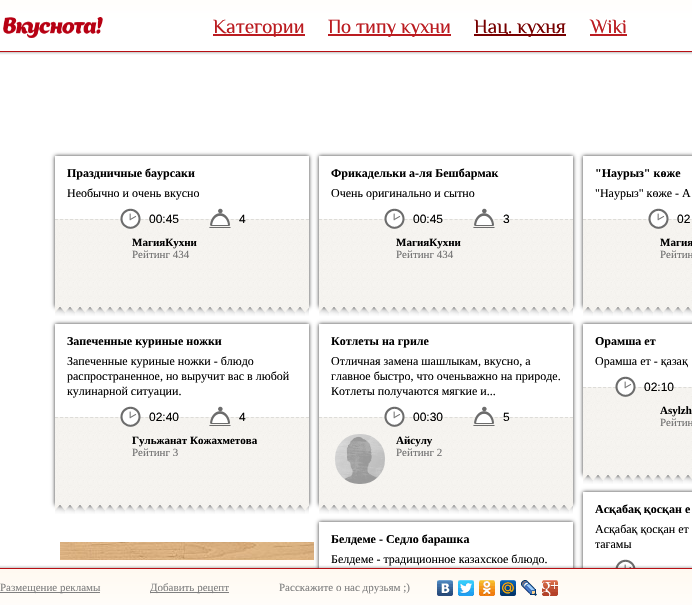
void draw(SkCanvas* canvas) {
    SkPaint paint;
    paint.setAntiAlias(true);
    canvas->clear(0xFFFFFFFF);
    canvas->drawImageRect(SkImages::DeferredFromEncodedData(SkData::MakeFromFileName("img1.png")), SkRect::MakeXYWH(0, 0, 692, 55), SkSamplingOptions());
    canvas->drawImageRect(SkImages::DeferredFromEncodedData(SkData::MakeFromFileName("img2.png")), SkRect::MakeXYWH(3, 17, 100, 21), SkSamplingOptions());
    paint.setColor(0xFFBB1C21);
    canvas->drawRect(SkRect::MakeXYWH(213, 34, 92, 2), paint);
    SkFont font1(fontMgr->matchFamilyStyle("Philosopher", SkFontStyle::Normal()), 20);
    font1.setSubpixel(true);
    canvas->drawString("Категории", 213, 33, font1, paint);
    canvas->drawRect(SkRect::MakeXYWH(328, 34, 123, 2), paint);
    canvas->drawString("По типу кухни", 328, 33, font1, paint);
    paint.setColor(0xFF770000);
    canvas->drawRect(SkRect::MakeXYWH(474, 34, 92, 2), paint);
    canvas->drawString("Нац. кухня", 474, 33, font1, paint);
    paint.setColor(0xFFBB1C21);
    canvas->drawString("Wiki", 590, 33, font1, paint);
    canvas->drawRect(SkRect::MakeXYWH(590, 34, 37, 2), paint);
    canvas->save();
    canvas->clipPath(SkPathBuilder(SkPathFillType::kEvenOdd).moveTo(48, 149).lineTo(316, 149).lineTo(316, 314).lineTo(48, 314).close().moveTo(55, 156).lineTo(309, 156).lineTo(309, 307).lineTo(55, 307).close().detach(), true);
    paint.setColor(0xFF333333);
    paint.setMaskFilter(SkMaskFilter::MakeBlur(kNormal_SkBlurStyle, 2));
    canvas->drawRect(SkRect::MakeXYWH(55, 156, 254, 151), paint);
    paint.setMaskFilter(nullptr);
    canvas->restore();
    SkFont font2(fontMgr->matchFamilyStyle("Liberation Serif", SkFontStyle::Bold()), 12);
    font2.setSubpixel(true);
    paint.setColor(0xFF000000);
    canvas->drawString("Праздничные баурсаки", 67, 177, font2, paint);
    SkFont font3(fontMgr->matchFamilyStyle("Liberation Serif", SkFontStyle::Normal()), 12);
    font3.setSubpixel(true);
    canvas->drawString("Необычно и очень вкусно", 67, 197, font3, paint);
    canvas->drawImageRect(SkImages::DeferredFromEncodedData(SkData::MakeFromFileName("img5.png")), SkRect::MakeXYWH(55, 219, 254, 88), SkSamplingOptions());
    paint.setStyle(SkPaint::kStroke_Style);
    paint.setStrokeWidth(1);
    paint.setColor(0xFFDDDCD8);
    paint.setPathEffect(SkDashPathEffect::Make({{3, 2.02f}}, 0));
    canvas->drawPath(SkPathBuilder().moveTo(55, 219.5f).lineTo(309, 219.5f).detach(), paint);
    paint.setPathEffect(nullptr);
    canvas->drawImageRect(SkImages::DeferredFromEncodedData(SkData::MakeFromFileName("img3.png")), SkRect::MakeXYWH(120, 208, 21, 21), SkSamplingOptions());
    SkFont font4(fontMgr->matchFamilyStyle("Liberation Sans", SkFontStyle::Normal()), 12);
    font4.setSubpixel(true);
    paint.setStyle(SkPaint::kFill_Style);
    paint.setColor(0xFF000000);
    canvas->drawString("00:45", 149, 223, font4, paint);
    canvas->drawImageRect(SkImages::DeferredFromEncodedData(SkData::MakeFromFileName("img4.png")), SkRect::MakeXYWH(209, 208, 22, 20), SkSamplingOptions());
    canvas->drawString("4", 239, 223, font4, paint);
    SkFont font5(fontMgr->matchFamilyStyle("Liberation Serif", SkFontStyle::Bold()), 11);
    font5.setSubpixel(true);
    canvas->drawString("МагияКухни", 132, 246, font5, paint);
    SkFont font6(fontMgr->matchFamilyStyle("Liberation Serif", SkFontStyle::Normal()), 11);
    font6.setSubpixel(true);
    paint.setColor(0xFF6F6F6F);
    canvas->drawString("Рейтинг 434", 132, 258, font6, paint);
    canvas->drawImageRect(SkImages::DeferredFromEncodedData(SkData::MakeFromFileName("img6.png")), SkRect::MakeXYWH(55, 307, 254, 9), SkSamplingOptions());
    canvas->save();
    canvas->clipPath(SkPathBuilder(SkPathFillType::kEvenOdd).moveTo(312, 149).lineTo(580, 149).lineTo(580, 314).lineTo(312, 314).close().moveTo(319, 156).lineTo(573, 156).lineTo(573, 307).lineTo(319, 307).close().detach(), true);
    paint.setColor(0xFF333333);
    paint.setMaskFilter(SkMaskFilter::MakeBlur(kNormal_SkBlurStyle, 2));
    canvas->drawRect(SkRect::MakeXYWH(319, 156, 254, 151), paint);
    paint.setMaskFilter(nullptr);
    canvas->restore();
    paint.setColor(0xFF000000);
    canvas->drawString("Фрикадельки а-ля Бешбармак", 331, 177, font2, paint);
    canvas->drawString("Очень оригинально и сытно", 331, 197, font3, paint);
    canvas->drawImageRect(SkImages::DeferredFromEncodedData(SkData::MakeFromFileName("img5.png")), SkRect::MakeXYWH(319, 219, 254, 88), SkSamplingOptions());
    paint.setStyle(SkPaint::kStroke_Style);
    paint.setColor(0xFFDDDCD8);
    paint.setPathEffect(SkDashPathEffect::Make({{3, 2.02f}}, 0));
    canvas->drawPath(SkPathBuilder().moveTo(319, 219.5f).lineTo(573, 219.5f).detach(), paint);
    paint.setPathEffect(nullptr);
    canvas->drawImageRect(SkImages::DeferredFromEncodedData(SkData::MakeFromFileName("img3.png")), SkRect::MakeXYWH(384, 208, 21, 21), SkSamplingOptions());
    paint.setStyle(SkPaint::kFill_Style);
    paint.setColor(0xFF000000);
    canvas->drawString("00:45", 413, 223, font4, paint);
    canvas->drawImageRect(SkImages::DeferredFromEncodedData(SkData::MakeFromFileName("img4.png")), SkRect::MakeXYWH(473, 208, 22, 20), SkSamplingOptions());
    canvas->drawString("3", 503, 223, font4, paint);
    canvas->drawString("МагияКухни", 396, 246, font5, paint);
    paint.setColor(0xFF6F6F6F);
    canvas->drawString("Рейтинг 434", 396, 258, font6, paint);
    canvas->drawImageRect(SkImages::DeferredFromEncodedData(SkData::MakeFromFileName("img6.png")), SkRect::MakeXYWH(319, 307, 254, 9), SkSamplingOptions());
    canvas->save();
    canvas->clipPath(SkPathBuilder(SkPathFillType::kEvenOdd).moveTo(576, 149).lineTo(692, 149).lineTo(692, 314).lineTo(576, 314).close().moveTo(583, 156).lineTo(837, 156).lineTo(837, 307).lineTo(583, 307).close().detach(), true);
    paint.setColor(0xFF333333);
    paint.setMaskFilter(SkMaskFilter::MakeBlur(kNormal_SkBlurStyle, 2));
    canvas->drawRect(SkRect::MakeXYWH(583, 156, 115, 151), paint);
    paint.setMaskFilter(nullptr);
    canvas->restore();
    paint.setColor(0xFF000000);
    canvas->drawString("\"Наурыз\" көже", 595, 177, font2, paint);
    canvas->drawString("\"Наурыз\" көже - А", 595, 197, font3, paint);
    canvas->drawImageRect(SkImages::DeferredFromEncodedData(SkData::MakeFromFileName("img7.png")), SkRect::MakeXYWH(583, 219, 109, 88), SkSamplingOptions());
    paint.setStyle(SkPaint::kStroke_Style);
    paint.setColor(0xFFDDDCD8);
    paint.setPathEffect(SkDashPathEffect::Make({{3, 2.02f}}, 0));
    canvas->drawPath(SkPathBuilder().moveTo(583, 219.5f).lineTo(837, 219.5f).detach(), paint);
    paint.setPathEffect(nullptr);
    canvas->drawImageRect(SkImages::DeferredFromEncodedData(SkData::MakeFromFileName("img3.png")), SkRect::MakeXYWH(648, 208, 21, 21), SkSamplingOptions());
    paint.setStyle(SkPaint::kFill_Style);
    paint.setColor(0xFF000000);
    canvas->drawString("02", 677, 223, font4, paint);
    canvas->drawString("Магия", 660, 246, font5, paint);
    paint.setColor(0xFF6F6F6F);
    canvas->drawString("Рейтин", 660, 258, font6, paint);
    canvas->drawImageRect(SkImages::DeferredFromEncodedData(SkData::MakeFromFileName("img8.png")), SkRect::MakeXYWH(583, 307, 109, 9), SkSamplingOptions());
    canvas->save();
    canvas->clipPath(SkPathBuilder(SkPathFillType::kEvenOdd).moveTo(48, 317).lineTo(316, 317).lineTo(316, 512).lineTo(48, 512).close().moveTo(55, 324).lineTo(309, 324).lineTo(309, 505).lineTo(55, 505).close().detach(), true);
    paint.setColor(0xFF333333);
    paint.setMaskFilter(SkMaskFilter::MakeBlur(kNormal_SkBlurStyle, 2));
    canvas->drawRect(SkRect::MakeXYWH(55, 324, 254, 181), paint);
    paint.setMaskFilter(nullptr);
    canvas->restore();
    paint.setColor(0xFF000000);
    canvas->drawString("Запеченные куриные ножки", 67, 345, font2, paint);
    canvas->drawString("Запеченные куриные ножки - блюдо", 67, 365, font3, paint);
    canvas->drawString("распространенное, но выручит вас в любой", 67, 380, font3, paint);
    canvas->drawString("кулинарной ситуации.", 67, 395, font3, paint);
    canvas->drawImageRect(SkImages::DeferredFromEncodedData(SkData::MakeFromFileName("img5.png")), SkRect::MakeXYWH(55, 417, 254, 88), SkSamplingOptions());
    paint.setStyle(SkPaint::kStroke_Style);
    paint.setColor(0xFFDDDCD8);
    paint.setPathEffect(SkDashPathEffect::Make({{3, 2.02f}}, 0));
    canvas->drawPath(SkPathBuilder().moveTo(55, 417.5f).lineTo(309, 417.5f).detach(), paint);
    paint.setPathEffect(nullptr);
    canvas->drawImageRect(SkImages::DeferredFromEncodedData(SkData::MakeFromFileName("img3.png")), SkRect::MakeXYWH(120, 406, 21, 21), SkSamplingOptions());
    paint.setStyle(SkPaint::kFill_Style);
    paint.setColor(0xFF000000);
    canvas->drawString("02:40", 149, 421, font4, paint);
    canvas->drawImageRect(SkImages::DeferredFromEncodedData(SkData::MakeFromFileName("img4.png")), SkRect::MakeXYWH(209, 406, 22, 20), SkSamplingOptions());
    canvas->drawString("4", 239, 421, font4, paint);
    canvas->drawString("Гульжанат Кожахметова", 132, 444, font5, paint);
    paint.setColor(0xFF6F6F6F);
    canvas->drawString("Рейтинг 3", 132, 456, font6, paint);
    canvas->drawImageRect(SkImages::DeferredFromEncodedData(SkData::MakeFromFileName("img6.png")), SkRect::MakeXYWH(55, 505, 254, 9), SkSamplingOptions());
    canvas->save();
    canvas->clipPath(SkPathBuilder(SkPathFillType::kEvenOdd).moveTo(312, 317).lineTo(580, 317).lineTo(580, 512).lineTo(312, 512).close().moveTo(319, 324).lineTo(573, 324).lineTo(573, 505).lineTo(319, 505).close().detach(), true);
    paint.setColor(0xFF333333);
    paint.setMaskFilter(SkMaskFilter::MakeBlur(kNormal_SkBlurStyle, 2));
    canvas->drawRect(SkRect::MakeXYWH(319, 324, 254, 181), paint);
    paint.setMaskFilter(nullptr);
    canvas->restore();
    paint.setColor(0xFF000000);
    canvas->drawString("Котлеты на гриле", 331, 345, font2, paint);
    canvas->drawString("Отличная замена шашлыкам, вкусно, а", 331, 365, font3, paint);
    canvas->drawString("главное быстро, что оченьважно на природе.", 331, 380, font3, paint);
    canvas->drawString("Котлеты получаются мягкие и...", 331, 395, font3, paint);
    canvas->drawImageRect(SkImages::DeferredFromEncodedData(SkData::MakeFromFileName("img5.png")), SkRect::MakeXYWH(319, 417, 254, 88), SkSamplingOptions());
    paint.setStyle(SkPaint::kStroke_Style);
    paint.setColor(0xFFDDDCD8);
    paint.setPathEffect(SkDashPathEffect::Make({{3, 2.02f}}, 0));
    canvas->drawPath(SkPathBuilder().moveTo(319, 417.5f).lineTo(573, 417.5f).detach(), paint);
    paint.setPathEffect(nullptr);
    canvas->drawImageRect(SkImages::DeferredFromEncodedData(SkData::MakeFromFileName("img3.png")), SkRect::MakeXYWH(384, 406, 21, 21), SkSamplingOptions());
    paint.setStyle(SkPaint::kFill_Style);
    paint.setColor(0xFF000000);
    canvas->drawString("00:30", 413, 421, font4, paint);
    canvas->drawImageRect(SkImages::DeferredFromEncodedData(SkData::MakeFromFileName("img4.png")), SkRect::MakeXYWH(473, 406, 22, 20), SkSamplingOptions());
    canvas->drawString("5", 503, 421, font4, paint);
    canvas->drawImageRect(SkImages::DeferredFromEncodedData(SkData::MakeFromFileName("img9.png")), SkRect::MakeXYWH(335, 434, 50, 50), SkSamplingOptions());
    canvas->drawString("Айсулу", 396, 444, font5, paint);
    paint.setColor(0xFF6F6F6F);
    canvas->drawString("Рейтинг 2", 396, 456, font6, paint);
    canvas->drawImageRect(SkImages::DeferredFromEncodedData(SkData::MakeFromFileName("img6.png")), SkRect::MakeXYWH(319, 505, 254, 9), SkSamplingOptions());
    canvas->save();
    canvas->clipPath(SkPathBuilder(SkPathFillType::kEvenOdd).moveTo(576, 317).lineTo(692, 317).lineTo(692, 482).lineTo(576, 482).close().moveTo(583, 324).lineTo(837, 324).lineTo(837, 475).lineTo(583, 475).close().detach(), true);
    paint.setColor(0xFF333333);
    paint.setMaskFilter(SkMaskFilter::MakeBlur(kNormal_SkBlurStyle, 2));
    canvas->drawRect(SkRect::MakeXYWH(583, 324, 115, 151), paint);
    paint.setMaskFilter(nullptr);
    canvas->restore();
    paint.setColor(0xFF000000);
    canvas->drawString("Орамша ет", 595, 345, font2, paint);
    canvas->drawString("Орамша ет - қазақ", 595, 365, font3, paint);
    canvas->drawImageRect(SkImages::DeferredFromEncodedData(SkData::MakeFromFileName("img7.png")), SkRect::MakeXYWH(583, 387, 109, 88), SkSamplingOptions());
    paint.setStyle(SkPaint::kStroke_Style);
    paint.setColor(0xFFDDDCD8);
    paint.setPathEffect(SkDashPathEffect::Make({{3, 2.02f}}, 0));
    canvas->drawPath(SkPathBuilder().moveTo(583, 387.5f).lineTo(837, 387.5f).detach(), paint);
    paint.setPathEffect(nullptr);
    canvas->drawImageRect(SkImages::DeferredFromEncodedData(SkData::MakeFromFileName("img10.png")), SkRect::MakeXYWH(615, 376, 21, 21), SkSamplingOptions());
    paint.setStyle(SkPaint::kFill_Style);
    paint.setColor(0xFF000000);
    canvas->drawString("02:10", 644, 391, font4, paint);
    canvas->drawString("Asylzh", 660, 414, font5, paint);
    paint.setColor(0xFF6F6F6F);
    canvas->drawString("Рейтин", 660, 426, font6, paint);
    canvas->drawImageRect(SkImages::DeferredFromEncodedData(SkData::MakeFromFileName("img8.png")), SkRect::MakeXYWH(583, 475, 109, 9), SkSamplingOptions());
    canvas->drawImageRect(SkImages::DeferredFromEncodedData(SkData::MakeFromFileName("img11.png")), SkRect::MakeXYWH(60, 542, 254, 26), SkSamplingOptions());
    canvas->save();
    canvas->clipPath(SkPathBuilder(SkPathFillType::kEvenOdd).moveTo(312, 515).lineTo(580, 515).lineTo(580, 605).lineTo(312, 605).close().moveTo(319, 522).lineTo(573, 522).lineTo(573, 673).lineTo(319, 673).close().detach(), true);
    paint.setColor(0xFF333333);
    paint.setMaskFilter(SkMaskFilter::MakeBlur(kNormal_SkBlurStyle, 2));
    canvas->drawRect(SkRect::MakeXYWH(319, 522, 254, 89), paint);
    paint.setMaskFilter(nullptr);
    canvas->restore();
    paint.setColor(0xFF000000);
    canvas->drawString("Белдеме - Седло барашка", 331, 543, font2, paint);
    canvas->drawString("Белдеме - традиционное казахское блюдо.", 331, 563, font3, paint);
    canvas->save();
    canvas->clipPath(SkPathBuilder(SkPathFillType::kEvenOdd).moveTo(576, 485).lineTo(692, 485).lineTo(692, 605).lineTo(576, 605).close().moveTo(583, 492).lineTo(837, 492).lineTo(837, 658).lineTo(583, 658).close().detach(), true);
    paint.setColor(0xFF333333);
    paint.setMaskFilter(SkMaskFilter::MakeBlur(kNormal_SkBlurStyle, 2));
    canvas->drawRect(SkRect::MakeXYWH(583, 492, 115, 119), paint);
    paint.setMaskFilter(nullptr);
    canvas->restore();
    paint.setColor(0xFF000000);
    canvas->drawString("Асқабақ қосқан е", 595, 513, font2, paint);
    canvas->drawString("Асқабақ қосқан ет", 595, 533, font3, paint);
    canvas->drawString("тағамы", 595, 548, font3, paint);
    canvas->drawImageRect(SkImages::DeferredFromEncodedData(SkData::MakeFromFileName("img12.png")), SkRect::MakeXYWH(615, 559, 21, 9), SkSamplingOptions());
    canvas->drawImageRect(SkImages::DeferredFromEncodedData(SkData::MakeFromFileName("img13.png")), SkRect::MakeXYWH(0, 565, 692, 40), SkSamplingOptions());
    paint.setColor(0xFF808080);
    canvas->drawRect(SkRect::MakeXYWH(0, 592, 100, 1), paint);
    canvas->drawString("Размещение рекламы", 0, 591, font6, paint);
    canvas->drawRect(SkRect::MakeXYWH(150, 592, 79, 1), paint);
    canvas->drawString("Добавить рецепт", 150, 591, font6, paint);
    canvas->drawString("Расскажите о нас друзьям ;)", 279, 591, font6, paint);
    canvas->drawImageRect(SkImages::DeferredFromEncodedData(SkData::MakeFromFileName("img14.png")), SkRect::MakeXYWH(437, 580, 16, 16), SkSamplingOptions());
    canvas->drawImageRect(SkImages::DeferredFromEncodedData(SkData::MakeFromFileName("img15.png")), SkRect::MakeXYWH(458, 580, 16, 16), SkSamplingOptions());
    canvas->drawImageRect(SkImages::DeferredFromEncodedData(SkData::MakeFromFileName("img16.png")), SkRect::MakeXYWH(479, 580, 16, 16), SkSamplingOptions());
    canvas->drawImageRect(SkImages::DeferredFromEncodedData(SkData::MakeFromFileName("img17.png")), SkRect::MakeXYWH(500, 580, 16, 16), SkSamplingOptions());
    canvas->drawImageRect(SkImages::DeferredFromEncodedData(SkData::MakeFromFileName("img18.png")), SkRect::MakeXYWH(521, 580, 16, 16), SkSamplingOptions());
    canvas->drawImageRect(SkImages::DeferredFromEncodedData(SkData::MakeFromFileName("img19.png")), SkRect::MakeXYWH(542, 580, 16, 16), SkSamplingOptions());
}
